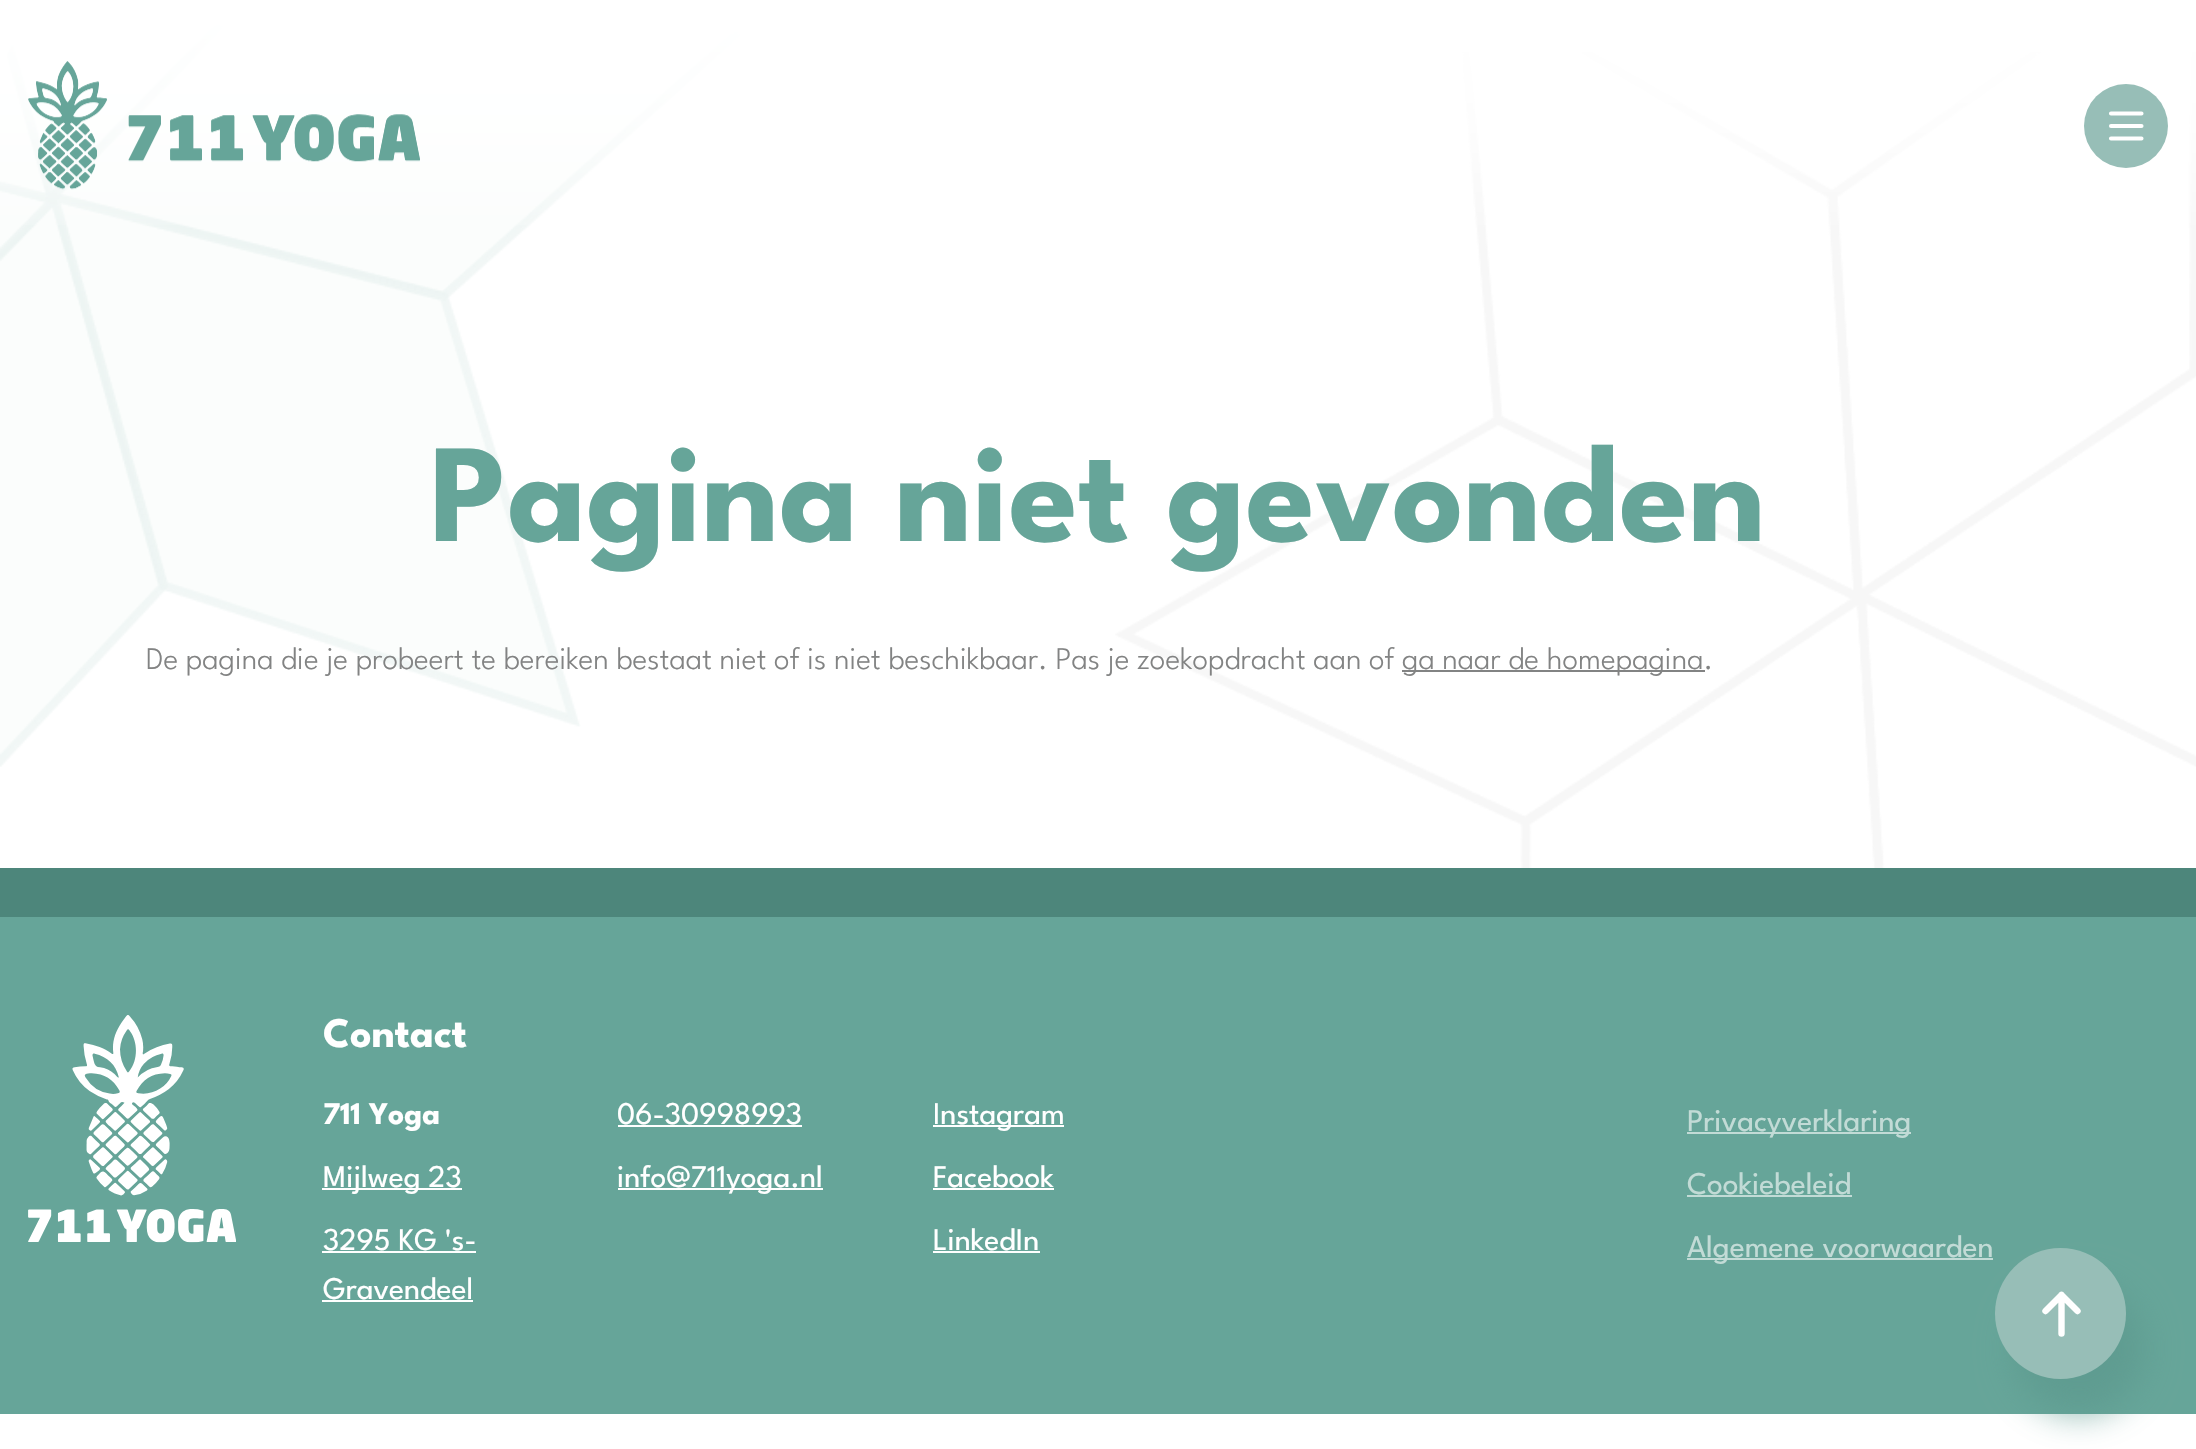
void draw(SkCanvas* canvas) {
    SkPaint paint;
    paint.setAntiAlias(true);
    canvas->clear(0xFFFFFFFF);
    canvas->drawImageRect(SkImages::DeferredFromEncodedData(SkData::MakeFromFileName("img2.png")), SkRect::MakeXYWH(0, 3, 773, 764), SkSamplingOptions());
    canvas->drawImageRect(SkImages::DeferredFromEncodedData(SkData::MakeFromFileName("img3.png")), SkRect::MakeXYWH(1115, 3, 1081, 865), SkSamplingOptions());
    {
        const SkColor colors[] = {0xFFFFFFFF, 0xBDFFFFFF, 0x00FFFFFF};
        const float stops[] = {0, 0.48f, 1};
        const SkPoint ends[] = {{1098, 0}, {1098, 250}};
        paint.setShader(SkGradientShader::MakeLinear(ends, colors, stops, 3, SkTileMode::kClamp));
        paint.setAlpha(255);
    }
    canvas->drawRect(SkRect::MakeXYWH(0, 3, 2196, 222), paint);
    canvas->drawImageRect(SkImages::DeferredFromEncodedData(SkData::MakeFromFileName("img1.png")), SkRect::MakeXYWH(28, 61, 392, 129), SkSamplingOptions());
    paint.setShader(nullptr);
    paint.setColor(0xFF97BEB7);
    canvas->drawCircle(2126, 126, 42, paint);
    paint.setStyle(SkPaint::kStroke_Style);
    paint.setStrokeWidth(4.1f);
    paint.setStrokeCap(SkPaint::kRound_Cap);
    paint.setStrokeJoin(SkPaint::kRound_Join);
    paint.setColor(0xFFFFFFFF);
    canvas->drawPath(SkPathBuilder().moveTo(2111, 113.5f).lineTo(2141.5f, 113.5f).moveTo(2111, 126).lineTo(2141.5f, 126).moveTo(2111, 138.5f).lineTo(2141.5f, 138.5f).detach(), paint);
    SkFont font1(fontMgr->matchFamilyStyle("League Spartan", SkFontStyle::Bold()), 140);
    font1.setSubpixel(true);
    paint.setStyle(SkPaint::kFill_Style);
    paint.setColor(0xFF66A599);
    canvas->drawString("Pagina niet gevonden", 430, 541, font1, paint);
    SkFont font2(fontMgr->matchFamilyStyle("League Spartan", SkFontStyle(300, SkFontStyle::kNormal_Width, SkFontStyle::kUpright_Slant)), 31.5f);
    font2.setSubpixel(true);
    paint.setColor(0xFF828383);
    canvas->drawString("De pagina die je probeert te bereiken bestaat niet of is niet beschikbaar. Pas je zoekopdracht aan of", 146, 669, font2, paint);
    canvas->drawRect(SkRect::MakeXYWH(1402, 670, 303, 2), paint);
    canvas->drawString("ga naar de homepagina.", 1402, 669, font2, paint);
    paint.setColor(0xFF66A599);
    canvas->drawRect(SkRect::MakeXYWH(0, 917, 2196, 497), paint);
    paint.setColor(0xFF4D867B);
    canvas->drawRect(SkRect::MakeXYWH(0, 868, 2196, 49), paint);
    canvas->drawImageRect(SkImages::DeferredFromEncodedData(SkData::MakeFromFileName("img4.png")), SkRect::MakeXYWH(28, 1015, 208, 228), SkSamplingOptions());
    SkFont font3(fontMgr->matchFamilyStyle("League Spartan", SkFontStyle::Bold()), 42);
    font3.setSubpixel(true);
    paint.setColor(0xFFFFFFFF);
    canvas->drawString("Contact", 323, 1047, font3, paint);
    SkFont font4(fontMgr->matchFamilyStyle("League Spartan", SkFontStyle::Bold()), 31.5f);
    font4.setSubpixel(true);
    canvas->drawString("711 Yoga", 323, 1124, font4, paint);
    canvas->drawRect(SkRect::MakeXYWH(322, 1188, 140, 2), paint);
    SkFont font5(fontMgr->matchFamilyStyle("League Spartan", SkFontStyle::Normal()), 31.5f);
    font5.setSubpixel(true);
    canvas->drawString("Mijlweg 23", 323, 1187, font5, paint);
    canvas->drawString("3295 KG 's-", 323, 1250, font5, paint);
    canvas->drawRect(SkRect::MakeXYWH(322, 1251, 154, 2), paint);
    canvas->drawString("Gravendeel", 323, 1299, font5, paint);
    canvas->drawRect(SkRect::MakeXYWH(322, 1300, 151, 2), paint);
    canvas->drawString("06-30998993", 617, 1124, font5, paint);
    canvas->drawRect(SkRect::MakeXYWH(618, 1125, 184, 2), paint);
    canvas->drawRect(SkRect::MakeXYWH(618, 1188, 205, 2), paint);
    canvas->drawString("info@711yoga.nl", 617, 1187, font5, paint);
    canvas->drawRect(SkRect::MakeXYWH(933, 1125, 131, 2), paint);
    canvas->drawString("Instagram", 933, 1124, font5, paint);
    canvas->drawString("Facebook", 933, 1187, font5, paint);
    canvas->drawRect(SkRect::MakeXYWH(933, 1188, 121, 2), paint);
    canvas->drawString("LinkedIn", 933, 1250, font5, paint);
    canvas->drawRect(SkRect::MakeXYWH(933, 1251, 107, 2), paint);
    paint.setColor(0xFFC2DBD6);
    canvas->drawRect(SkRect::MakeXYWH(1687, 1132, 224, 2), paint);
    canvas->drawString("Privacyverklaring", 1687, 1131, font5, paint);
    canvas->drawString("Cookiebeleid", 1687, 1194, font5, paint);
    canvas->drawRect(SkRect::MakeXYWH(1687, 1195, 165, 2), paint);
    canvas->drawRect(SkRect::MakeXYWH(1687, 1258, 306, 2), paint);
    canvas->drawString("Algemene voorwaarden", 1687, 1257, font5, paint);
    paint.setColor(0xB55C988D);
    paint.setMaskFilter(SkMaskFilter::MakeBlur(kNormal_SkBlurStyle, 17.5f));
    canvas->drawRoundRect(SkRect::MakeXYWH(2013, 1283, 131, 131), 65.5f, 65.5f, paint);
    paint.setMaskFilter(nullptr);
    paint.setColor(0xFF97BEB7);
    canvas->drawCircle(2060.5f, 1313.5f, 65.5f, paint);
    paint.setStyle(SkPaint::kStroke_Style);
    paint.setStrokeWidth(6.4f);
    paint.setColor(0xFFFFFFFF);
    canvas->drawPath(SkPathBuilder().moveTo(2061.5f, 1295).lineTo(2061.5f, 1333.5f).moveTo(2061.5f, 1295).lineTo(2045.5f, 1311).moveTo(2061.5f, 1295).lineTo(2077.5f, 1311).detach(), paint);
}
